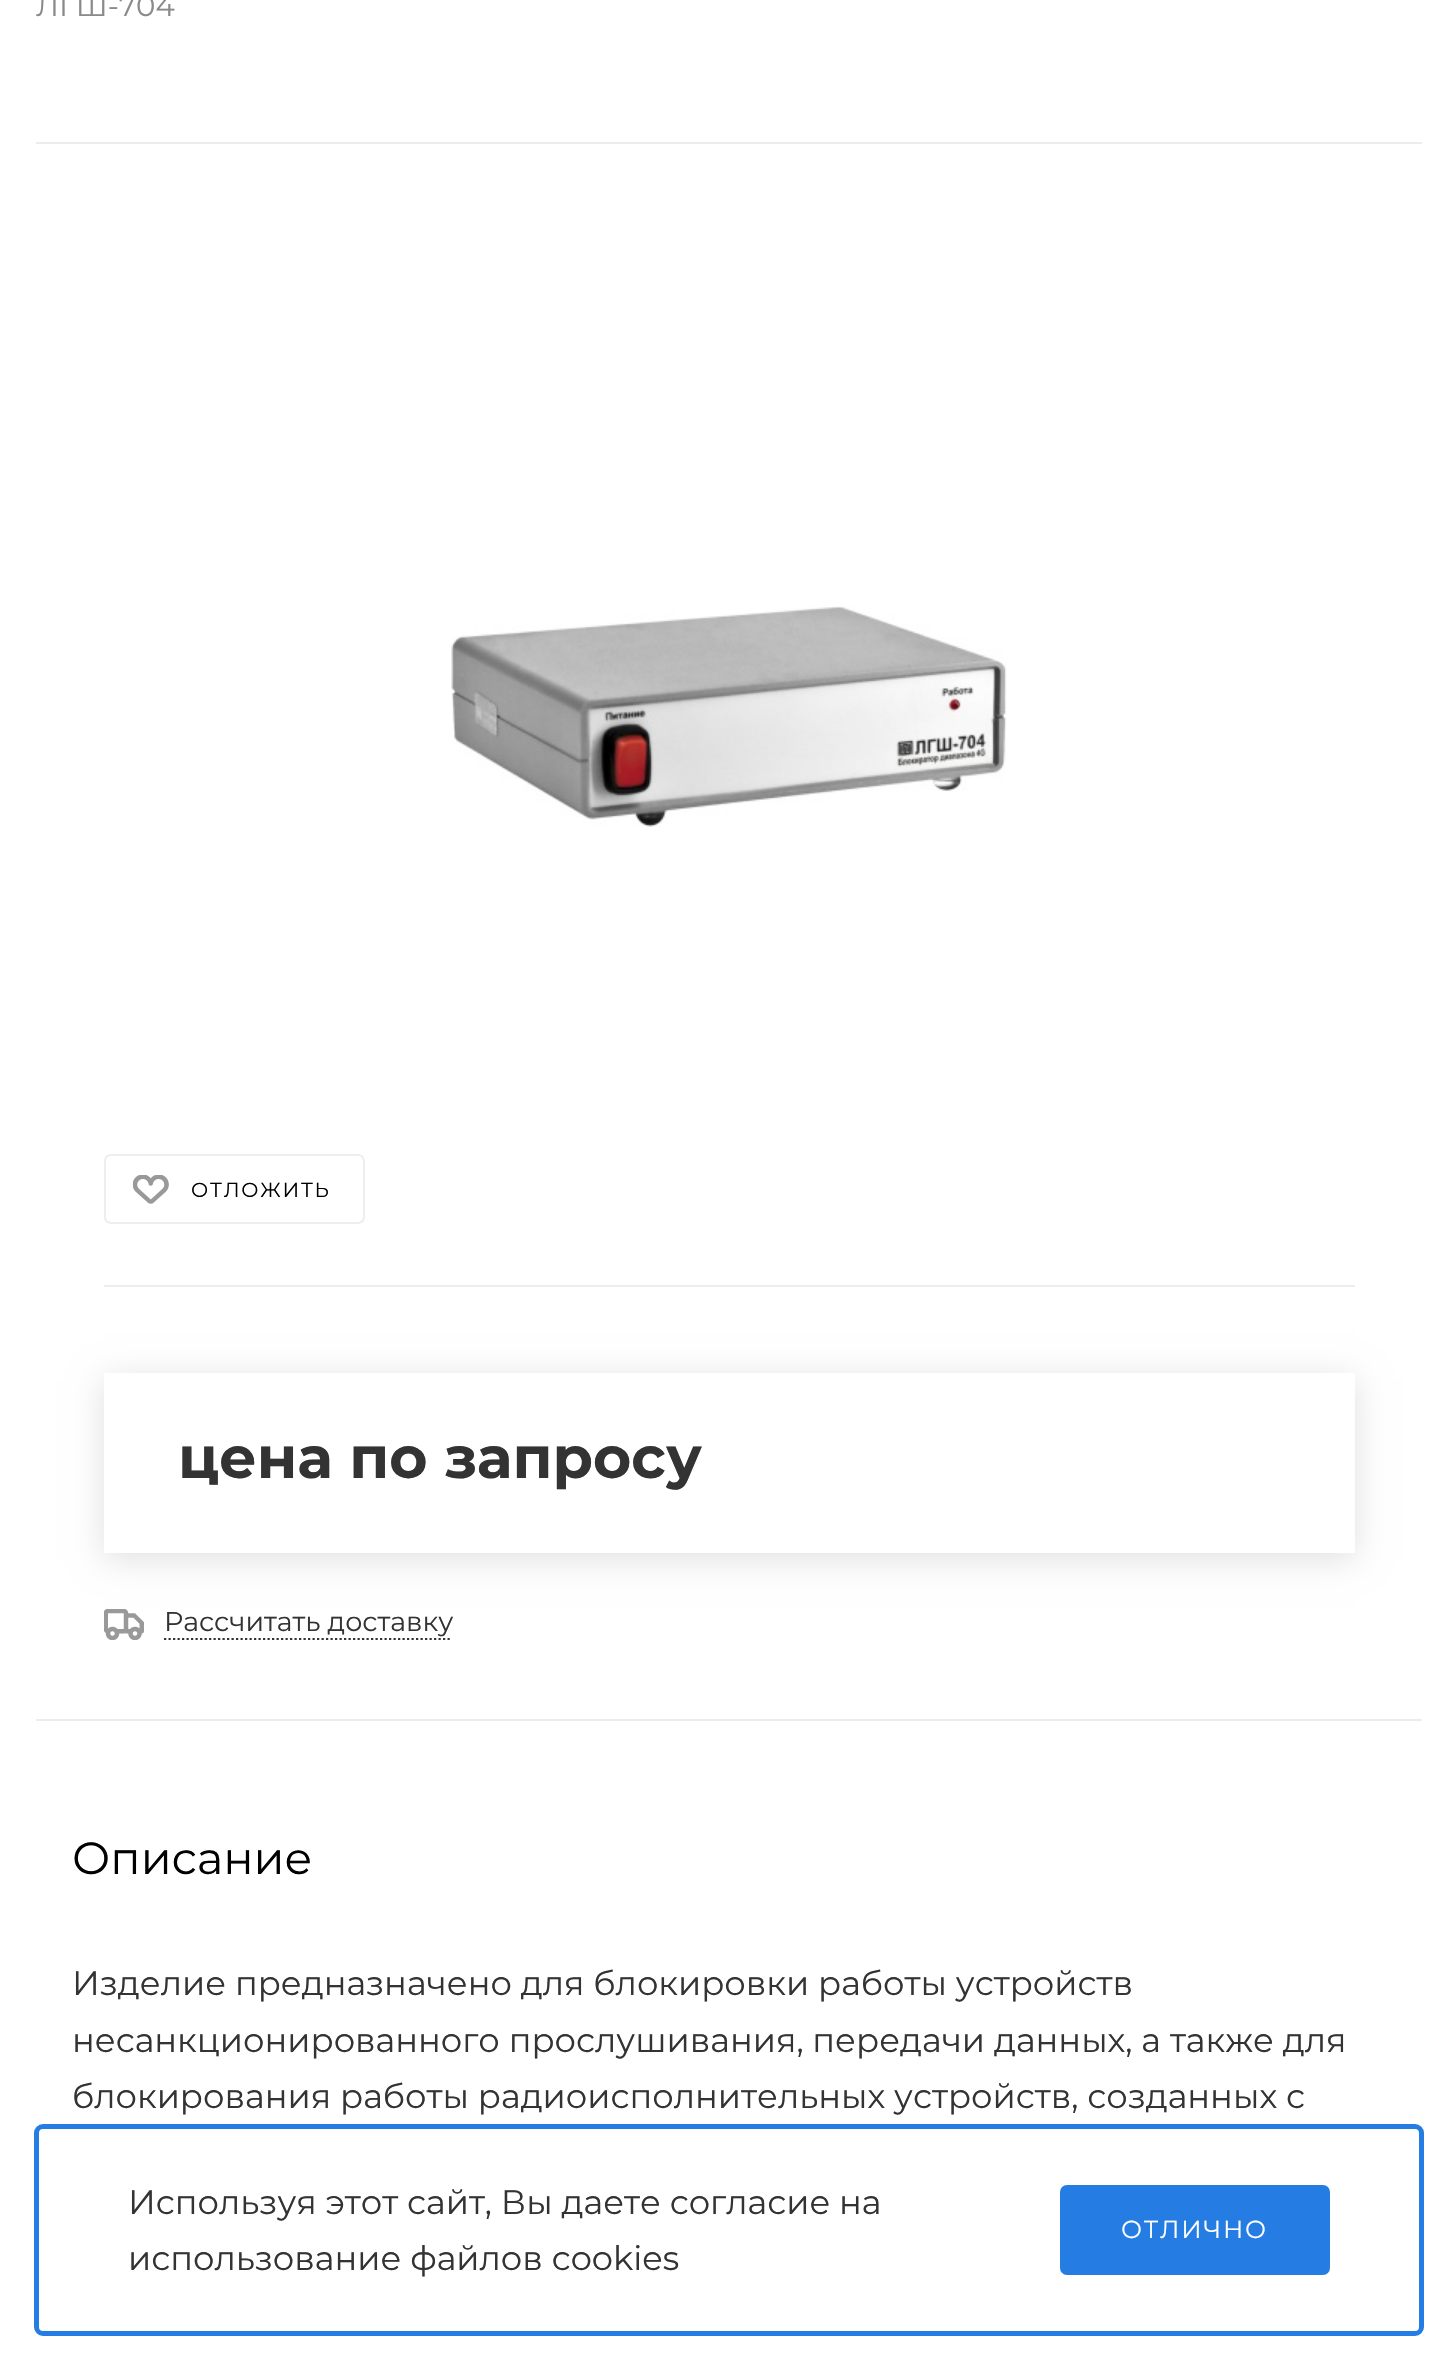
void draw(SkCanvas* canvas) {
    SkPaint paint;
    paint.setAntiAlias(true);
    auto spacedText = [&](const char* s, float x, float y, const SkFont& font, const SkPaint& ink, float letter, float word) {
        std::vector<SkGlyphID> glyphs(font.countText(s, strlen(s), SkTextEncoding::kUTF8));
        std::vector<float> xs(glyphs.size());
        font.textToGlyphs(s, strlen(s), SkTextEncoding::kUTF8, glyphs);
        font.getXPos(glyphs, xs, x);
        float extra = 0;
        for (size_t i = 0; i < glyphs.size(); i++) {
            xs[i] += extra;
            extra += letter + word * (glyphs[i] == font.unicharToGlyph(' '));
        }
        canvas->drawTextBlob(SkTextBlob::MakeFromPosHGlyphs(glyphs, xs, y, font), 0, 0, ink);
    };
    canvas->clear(0xFFFFFFFF);
    SkFont font1(fontMgr->matchFamilyStyle("Montserrat", SkFontStyle::Normal()), 29.25f);
    font1.setSubpixel(true);
    paint.setColor(0xFF8A8A8A);
    canvas->drawString("ЛГШ-704", 36, 16, font1, paint);
    paint.setColor(0xFFECECEC);
    canvas->drawRect(SkRect::MakeXYWH(36, 142, 1386, 2), paint);
    canvas->drawRect(SkRect::MakeXYWH(36, 1719, 1386, 2), paint);
    canvas->drawImageRect(SkImages::DeferredFromEncodedData(SkData::MakeFromFileName("img1.png")), SkRect::MakeXYWH(451, 606, 556, 221), SkSamplingOptions());
    canvas->drawRect(SkRect::MakeXYWH(104, 1285, 1251, 2), paint);
    paint.setStyle(SkPaint::kStroke_Style);
    paint.setStrokeWidth(2);
    paint.setColor(0xFFEEEEEE);
    canvas->drawRoundRect(SkRect::MakeXYWH(105, 1155, 259, 68), 6, 6, paint);
    canvas->drawImageRect(SkImages::DeferredFromEncodedData(SkData::MakeFromFileName("img2.png")), SkRect::MakeXYWH(133, 1175, 36, 29), SkSamplingOptions());
    SkFont font2(fontMgr->matchFamilyStyle("Montserrat", SkFontStyle::Normal()), 20.25f);
    font2.setSubpixel(true);
    paint.setStyle(SkPaint::kFill_Style);
    paint.setColor(0xFF000000);
    spacedText("ОТЛОЖИТЬ", 191, 1197, font2, paint, 1.75f, 0);
    canvas->save();
    canvas->clipPath(SkPathBuilder(SkPathFillType::kEvenOdd).moveTo(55, 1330).lineTo(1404, 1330).lineTo(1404, 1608).lineTo(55, 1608).close().moveTo(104, 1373).lineTo(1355, 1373).lineTo(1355, 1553).lineTo(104, 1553).close().detach(), true);
    paint.setColor(0x1F000000);
    paint.setMaskFilter(SkMaskFilter::MakeBlur(kNormal_SkBlurStyle, 16));
    canvas->drawRect(SkRect::MakeXYWH(104, 1379, 1251, 180), paint);
    paint.setMaskFilter(nullptr);
    canvas->restore();
    SkFont font3(fontMgr->matchFamilyStyle("Montserrat", SkFontStyle::Bold()), 58.5f);
    font3.setSubpixel(true);
    paint.setColor(0xFF333333);
    canvas->drawString("цена по запросу", 178, 1478, font3, paint);
    canvas->drawImageRect(SkImages::DeferredFromEncodedData(SkData::MakeFromFileName("img3.png")), SkRect::MakeXYWH(104, 1609, 40, 31), SkSamplingOptions());
    SkFont font4(fontMgr->matchFamilyStyle("Montserrat", SkFontStyle::Normal()), 27);
    font4.setSubpixel(true);
    canvas->drawString("Рассчитать доставку", 164, 1631, font4, paint);
    paint.setStyle(SkPaint::kStroke_Style);
    paint.setStrokeWidth(2.2f);
    paint.setPathEffect(SkDashPathEffect::Make({{2.25f, 2.25f}}, 0));
    canvas->drawPath(SkPathBuilder().moveTo(164, 1639).lineTo(452, 1639).detach(), paint);
    paint.setPathEffect(nullptr);
    SkFont font5(fontMgr->matchFamilyStyle("Montserrat", SkFontStyle::Normal()), 45);
    font5.setSubpixel(true);
    paint.setStyle(SkPaint::kFill_Style);
    paint.setColor(0xFF000000);
    canvas->drawString("Описание", 72, 1874, font5, paint);
    SkFont font6(fontMgr->matchFamilyStyle("Montserrat", SkFontStyle::Normal()), 33.75f);
    font6.setSubpixel(true);
    paint.setColor(0xFF333333);
    canvas->drawString("Изделие предназначено для блокировки работы устройств", 72, 1995, font6, paint);
    canvas->drawString("несанкционированного прослушивания, передачи данных, а также для", 72, 2052, font6, paint);
    canvas->drawString("блокирования работы радиоисполнительных устройств, созданных с", 72, 2108, font6, paint);
    paint.setStyle(SkPaint::kStroke_Style);
    paint.setStrokeWidth(5);
    paint.setColor(0xFF257DE3);
    canvas->drawRoundRect(SkRect::MakeXYWH(36.5f, 2126.5f, 1385, 207), 6.5f, 6.5f, paint);
    paint.setStyle(SkPaint::kFill_Style);
    paint.setColor(0xFF333333);
    canvas->drawString("Используя этот сайт, Вы даете согласие на", 128, 2214, font6, paint);
    canvas->drawString("использование файлов cookies", 128, 2270, font6, paint);
    paint.setColor(0xFF257DE3);
    canvas->drawRoundRect(SkRect::MakeXYWH(1061, 2186, 268, 88), 6, 6, paint);
    paint.setStyle(SkPaint::kStroke_Style);
    paint.setStrokeWidth(2);
    canvas->drawRoundRect(SkRect::MakeXYWH(1061, 2186, 268, 88), 6, 6, paint);
    SkFont font7(fontMgr->matchFamilyStyle("Montserrat", SkFontStyle::Normal()), 24.75f);
    font7.setSubpixel(true);
    paint.setStyle(SkPaint::kFill_Style);
    paint.setColor(0xFFFFFFFF);
    spacedText("ОТЛИЧНО", 1121, 2238, font7, paint, 1.75f, 0);
}
